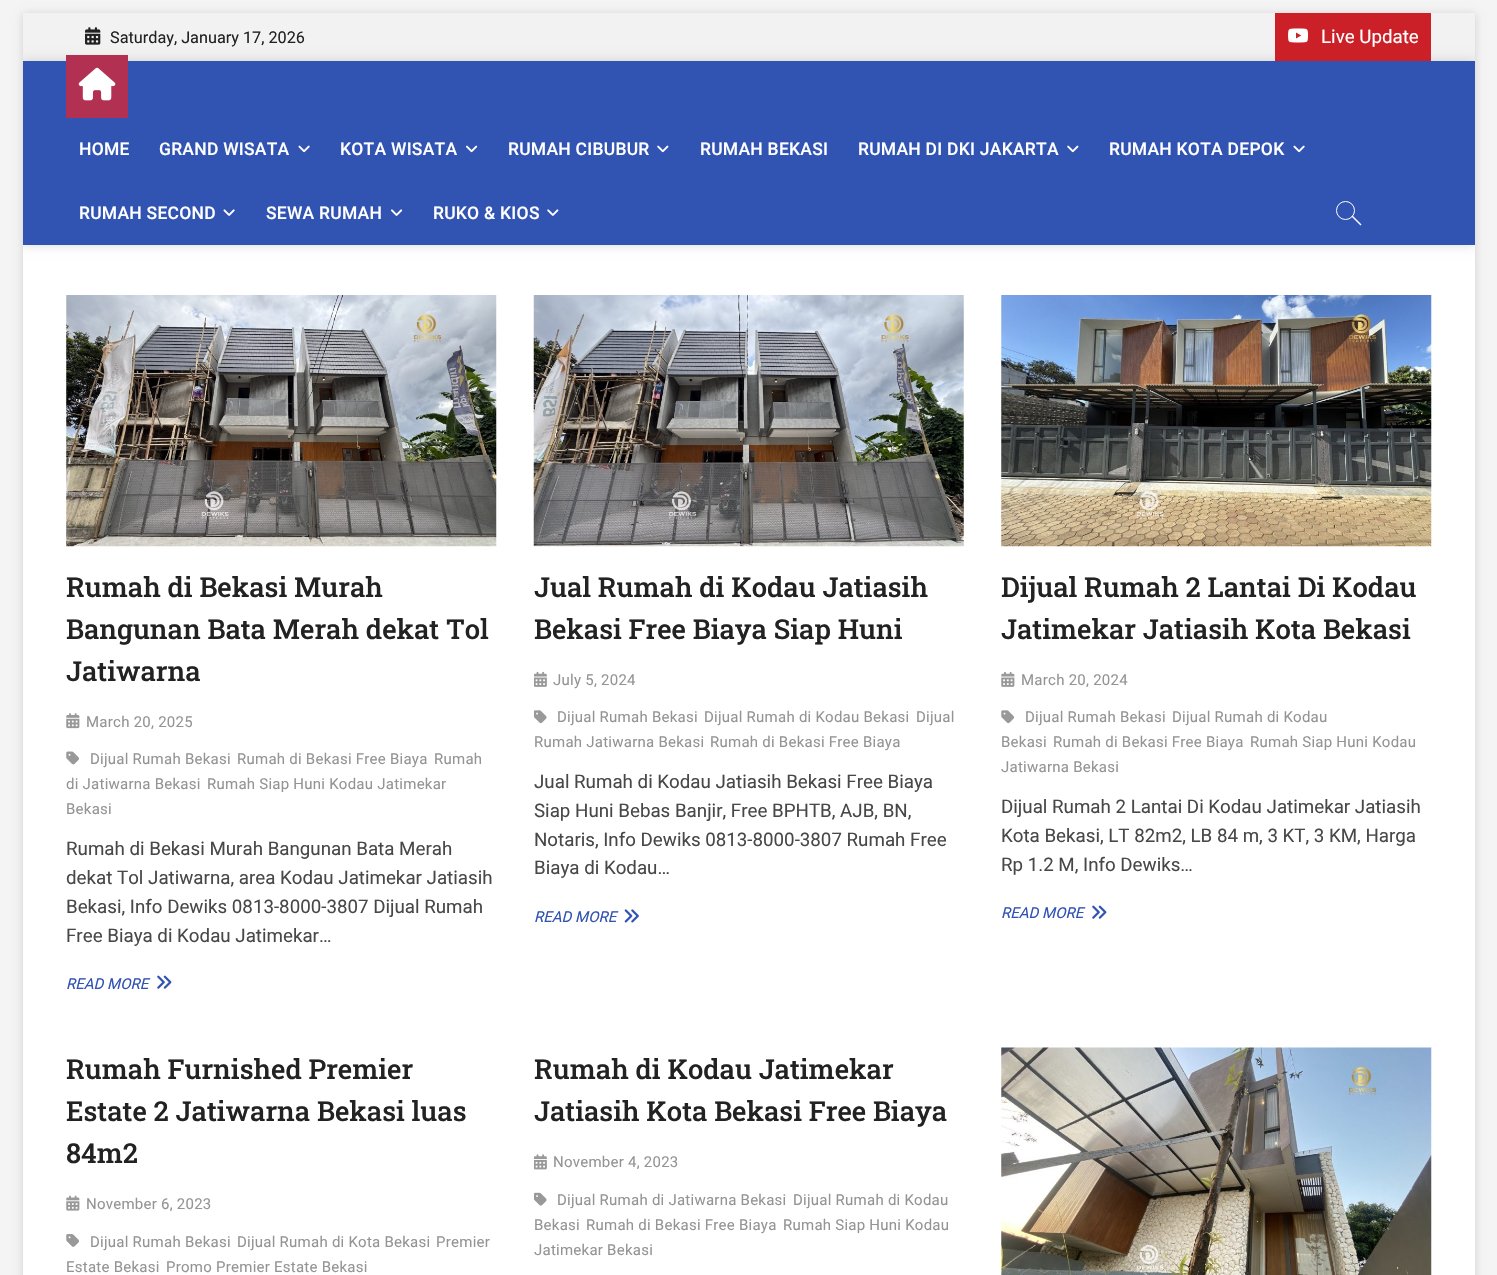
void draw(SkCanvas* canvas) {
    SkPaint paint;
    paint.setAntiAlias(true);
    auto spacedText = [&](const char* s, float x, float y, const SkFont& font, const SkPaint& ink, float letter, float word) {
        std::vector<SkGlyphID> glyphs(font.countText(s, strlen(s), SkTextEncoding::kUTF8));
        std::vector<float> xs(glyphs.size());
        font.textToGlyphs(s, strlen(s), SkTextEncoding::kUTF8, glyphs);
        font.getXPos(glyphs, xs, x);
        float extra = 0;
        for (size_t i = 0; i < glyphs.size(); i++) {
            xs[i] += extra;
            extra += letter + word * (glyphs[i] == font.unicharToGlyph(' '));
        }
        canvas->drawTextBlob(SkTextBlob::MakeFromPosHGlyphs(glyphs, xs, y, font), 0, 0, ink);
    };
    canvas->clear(0xFFF4F4F4);
    paint.setColor(0x26000000);
    paint.setMaskFilter(SkMaskFilter::MakeBlur(kNormal_SkBlurStyle, 4));
    canvas->drawRect(SkRect::MakeXYWH(23, 14, 1452, 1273), paint);
    paint.setMaskFilter(nullptr);
    paint.setColor(0xFFFFFFFF);
    canvas->drawRect(SkRect::MakeXYWH(23, 245, 1452, 1030), paint);
    paint.setColor(0xFFF2F2F2);
    canvas->drawRect(SkRect::MakeXYWH(23, 13, 1452, 48), paint);
    canvas->drawImageRect(SkImages::DeferredFromEncodedData(SkData::MakeFromFileName("img1.png")), SkRect::MakeXYWH(85, 27, 16, 18), SkSamplingOptions());
    canvas->save();
    canvas->clipRect(SkRect::MakeXYWH(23, 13, 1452, 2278));
    paint.setColor(0x26000000);
    paint.setMaskFilter(SkMaskFilter::MakeBlur(kNormal_SkBlurStyle, 5));
    canvas->drawRect(SkRect::MakeXYWH(23, 61, 1452, 184), paint);
    paint.setMaskFilter(nullptr);
    canvas->restore();
    SkFont font1(fontMgr->matchFamilyStyle("Roboto", SkFontStyle::Normal()), 16.25f);
    font1.setSubpixel(true);
    paint.setColor(0xFF222222);
    canvas->drawString("Saturday, January 17, 2026", 110, 43, font1, paint);
    paint.setColor(0xFFCB2027);
    canvas->drawRect(SkRect::MakeXYWH(1275, 13, 156, 48), paint);
    canvas->drawImageRect(SkImages::DeferredFromEncodedData(SkData::MakeFromFileName("img2.png")), SkRect::MakeXYWH(1288, 28, 21, 15), SkSamplingOptions());
    SkFont font2(fontMgr->matchFamilyStyle("Roboto", SkFontStyle::Normal()), 18.75f);
    font2.setSubpixel(true);
    paint.setColor(0xFFFFFFFF);
    canvas->drawString("Live Update", 1321, 43, font2, paint);
    paint.setColor(0xFF3153B2);
    canvas->drawRect(SkRect::MakeXYWH(23, 61, 1452, 184), paint);
    paint.setColor(0xFFB23153);
    canvas->drawRect(SkRect::MakeXYWH(66, 55, 62, 63), paint);
    canvas->drawImageRect(SkImages::DeferredFromEncodedData(SkData::MakeFromFileName("img3.png")), SkRect::MakeXYWH(78, 67, 38, 34), SkSamplingOptions());
    SkFont font3(fontMgr->matchFamilyStyle("Roboto", SkFontStyle(500, SkFontStyle::kNormal_Width, SkFontStyle::kUpright_Slant)), 17.5f);
    font3.setSubpixel(true);
    paint.setColor(0xFFFFFFFF);
    spacedText("HOME", 79, 155, font3, paint, 0.25f, 0);
    spacedText("GRAND WISATA", 159, 155, font3, paint, 0.25f, 0);
    canvas->drawImageRect(SkImages::DeferredFromEncodedData(SkData::MakeFromFileName("img4.png")), SkRect::MakeXYWH(298, 145, 12, 8), SkSamplingOptions());
    spacedText("KOTA WISATA", 340, 155, font3, paint, 0.25f, 0);
    canvas->drawImageRect(SkImages::DeferredFromEncodedData(SkData::MakeFromFileName("img5.png")), SkRect::MakeXYWH(466, 145, 12, 8), SkSamplingOptions());
    spacedText("RUMAH CIBUBUR", 508, 155, font3, paint, 0.25f, 0);
    canvas->drawImageRect(SkImages::DeferredFromEncodedData(SkData::MakeFromFileName("img6.png")), SkRect::MakeXYWH(657, 145, 12, 8), SkSamplingOptions());
    spacedText("RUMAH BEKASI", 700, 155, font3, paint, 0.25f, 0);
    spacedText("RUMAH DI DKI JAKARTA", 858, 155, font3, paint, 0.25f, 0);
    canvas->drawImageRect(SkImages::DeferredFromEncodedData(SkData::MakeFromFileName("img6.png")), SkRect::MakeXYWH(1067, 145, 12, 8), SkSamplingOptions());
    spacedText("RUMAH KOTA DEPOK", 1109, 155, font3, paint, 0.25f, 0);
    canvas->drawImageRect(SkImages::DeferredFromEncodedData(SkData::MakeFromFileName("img4.png")), SkRect::MakeXYWH(1293, 145, 12, 8), SkSamplingOptions());
    spacedText("RUMAH SECOND", 79, 219, font3, paint, 0.25f, 0);
    canvas->drawImageRect(SkImages::DeferredFromEncodedData(SkData::MakeFromFileName("img7.png")), SkRect::MakeXYWH(223, 209, 12, 7), SkSamplingOptions());
    spacedText("SEWA RUMAH", 266, 219, font3, paint, 0.25f, 0);
    canvas->drawImageRect(SkImages::DeferredFromEncodedData(SkData::MakeFromFileName("img8.png")), SkRect::MakeXYWH(391, 209, 12, 7), SkSamplingOptions());
    spacedText("RUKO & KIOS", 433, 219, font3, paint, 0.25f, 0);
    canvas->drawImageRect(SkImages::DeferredFromEncodedData(SkData::MakeFromFileName("img9.png")), SkRect::MakeXYWH(547, 209, 12, 7), SkSamplingOptions());
    paint.setStyle(SkPaint::kStroke_Style);
    paint.setStrokeWidth(1);
    canvas->drawCircle(1345.5f, 210.5f, 9, paint);
    paint.setStyle(SkPaint::kFill_Style);
    canvas->drawPath(SkPathBuilder().moveTo(1351.5f, 216.5f).lineTo(1352.5f, 215.5f).lineTo(1361.5f, 224.5f).lineTo(1360.5f, 225.5f).close().detach(), paint);
    canvas->drawImageRect(SkImages::DeferredFromEncodedData(SkData::MakeFromFileName("img10.png")), SkRect::MakeXYWH(66, 295, 431, 252), SkSamplingOptions());
    SkFont font4(fontMgr->matchFamilyStyle("Roboto Slab", SkFontStyle(500, SkFontStyle::kNormal_Width, SkFontStyle::kUpright_Slant)), 27.5f);
    font4.setSubpixel(true);
    paint.setColor(0xFF222222);
    canvas->drawString("Rumah di Bekasi Murah", 66, 597, font4, paint);
    canvas->drawString("Bangunan Bata Merah dekat Tol", 66, 639, font4, paint);
    canvas->drawString("Jatiwarna", 66, 681, font4, paint);
    canvas->drawImageRect(SkImages::DeferredFromEncodedData(SkData::MakeFromFileName("img11.png")), SkRect::MakeXYWH(66, 713, 14, 16), SkSamplingOptions());
    SkFont font5(fontMgr->matchFamilyStyle("Roboto", SkFontStyle::Normal()), 15);
    font5.setSubpixel(true);
    paint.setColor(0xFF949494);
    spacedText("March 20, 2025", 86, 727, font5, paint, 0.25f, 0);
    canvas->drawImageRect(SkImages::DeferredFromEncodedData(SkData::MakeFromFileName("img12.png")), SkRect::MakeXYWH(66, 751, 13, 14), SkSamplingOptions());
    spacedText("Dijual Rumah Bekasi", 90, 764, font5, paint, 0.25f, 0);
    spacedText("Rumah di Bekasi Free Biaya", 237, 764, font5, paint, 0.25f, 0);
    spacedText("Rumah", 434, 764, font5, paint, 0.25f, 0);
    spacedText("di Jatiwarna Bekasi", 66, 789, font5, paint, 0.25f, 0);
    spacedText("Rumah Siap Huni Kodau Jatimekar", 207, 789, font5, paint, 0.25f, 0);
    spacedText("Bekasi", 66, 814, font5, paint, 0.25f, 0);
    paint.setColor(0xFF484848);
    canvas->drawString("Rumah di Bekasi Murah Bangunan Bata Merah", 66, 855, font2, paint);
    canvas->drawString("dekat Tol Jatiwarna, area Kodau Jatimekar Jatiasih", 66, 884, font2, paint);
    canvas->drawString("Bekasi, Info Dewiks 0813-8000-3807 Dijual Rumah", 66, 913, font2, paint);
    canvas->drawString("Free Biaya di Kodau Jatimekar…", 66, 942, font2, paint);
    SkFont font6(fontMgr->matchFamilyStyle("Roboto", SkFontStyle::Italic()), 15);
    font6.setSubpixel(true);
    paint.setColor(0xFF3153B2);
    canvas->drawString("READ MORE", 66, 989, font6, paint);
    canvas->drawImageRect(SkImages::DeferredFromEncodedData(SkData::MakeFromFileName("img13.png")), SkRect::MakeXYWH(157, 975, 15, 14), SkSamplingOptions());
    canvas->drawImageRect(SkImages::DeferredFromEncodedData(SkData::MakeFromFileName("img14.png")), SkRect::MakeXYWH(533, 295, 431, 252), SkSamplingOptions());
    paint.setColor(0xFF222222);
    canvas->drawString("Jual Rumah di Kodau Jatiasih", 534, 597, font4, paint);
    canvas->drawString("Bekasi Free Biaya Siap Huni", 534, 639, font4, paint);
    canvas->drawImageRect(SkImages::DeferredFromEncodedData(SkData::MakeFromFileName("img15.png")), SkRect::MakeXYWH(534, 671, 13, 16), SkSamplingOptions());
    paint.setColor(0xFF949494);
    spacedText("July 5, 2024", 553, 685, font5, paint, 0.25f, 0);
    canvas->drawImageRect(SkImages::DeferredFromEncodedData(SkData::MakeFromFileName("img16.png")), SkRect::MakeXYWH(534, 710, 13, 14), SkSamplingOptions());
    spacedText("Dijual Rumah Bekasi", 557, 722, font5, paint, 0.25f, 0);
    spacedText("Dijual Rumah di Kodau Bekasi", 704, 722, font5, paint, 0.25f, 0);
    spacedText("Dijual", 916, 722, font5, paint, 0.25f, 0);
    spacedText("Rumah Jatiwarna Bekasi", 534, 747, font5, paint, 0.25f, 0);
    spacedText("Rumah di Bekasi Free Biaya", 710, 747, font5, paint, 0.25f, 0);
    paint.setColor(0xFF484848);
    canvas->drawString("Jual Rumah di Kodau Jatiasih Bekasi Free Biaya", 534, 788, font2, paint);
    canvas->drawString("Siap Huni Bebas Banjir, Free BPHTB, AJB, BN,", 534, 817, font2, paint);
    canvas->drawString("Notaris, Info Dewiks 0813-8000-3807 Rumah Free", 534, 846, font2, paint);
    canvas->drawString("Biaya di Kodau…", 534, 874, font2, paint);
    paint.setColor(0xFF3153B2);
    canvas->drawString("READ MORE", 534, 922, font6, paint);
    canvas->drawImageRect(SkImages::DeferredFromEncodedData(SkData::MakeFromFileName("img17.png")), SkRect::MakeXYWH(624, 909, 15, 14), SkSamplingOptions());
    canvas->drawImageRect(SkImages::DeferredFromEncodedData(SkData::MakeFromFileName("img18.png")), SkRect::MakeXYWH(1001, 295, 431, 252), SkSamplingOptions());
    paint.setColor(0xFF222222);
    canvas->drawString("Dijual Rumah 2 Lantai Di Kodau", 1001, 597, font4, paint);
    canvas->drawString("Jatimekar Jatiasih Kota Bekasi", 1001, 639, font4, paint);
    canvas->drawImageRect(SkImages::DeferredFromEncodedData(SkData::MakeFromFileName("img19.png")), SkRect::MakeXYWH(1001, 671, 14, 16), SkSamplingOptions());
    paint.setColor(0xFF949494);
    spacedText("March 20, 2024", 1021, 685, font5, paint, 0.25f, 0);
    canvas->drawImageRect(SkImages::DeferredFromEncodedData(SkData::MakeFromFileName("img20.png")), SkRect::MakeXYWH(1001, 710, 13, 14), SkSamplingOptions());
    spacedText("Dijual Rumah Bekasi", 1025, 722, font5, paint, 0.25f, 0);
    spacedText("Dijual Rumah di Kodau", 1172, 722, font5, paint, 0.25f, 0);
    spacedText("Bekasi", 1001, 747, font5, paint, 0.25f, 0);
    spacedText("Rumah di Bekasi Free Biaya", 1053, 747, font5, paint, 0.25f, 0);
    spacedText("Rumah Siap Huni Kodau", 1250, 747, font5, paint, 0.25f, 0);
    spacedText("Jatiwarna Bekasi", 1001, 772, font5, paint, 0.25f, 0);
    paint.setColor(0xFF484848);
    canvas->drawString("Dijual Rumah 2 Lantai Di Kodau Jatimekar Jatiasih", 1001, 813, font2, paint);
    canvas->drawString("Kota Bekasi, LT 82m2, LB 84 m, 3 KT, 3 KM, Harga", 1001, 842, font2, paint);
    canvas->drawString("Rp 1.2 M, Info Dewiks…", 1001, 871, font2, paint);
    paint.setColor(0xFF3153B2);
    canvas->drawString("READ MORE", 1001, 918, font6, paint);
    canvas->drawImageRect(SkImages::DeferredFromEncodedData(SkData::MakeFromFileName("img13.png")), SkRect::MakeXYWH(1092, 905, 15, 14), SkSamplingOptions());
    paint.setColor(0xFF222222);
    canvas->drawString("Rumah Furnished Premier", 66, 1079, font4, paint);
    canvas->drawString("Estate 2 Jatiwarna Bekasi luas", 66, 1121, font4, paint);
    canvas->drawString("84m2", 66, 1163, font4, paint);
    canvas->drawImageRect(SkImages::DeferredFromEncodedData(SkData::MakeFromFileName("img21.png")), SkRect::MakeXYWH(66, 1195, 14, 16), SkSamplingOptions());
    paint.setColor(0xFF949494);
    spacedText("November 6, 2023", 86, 1209, font5, paint, 0.25f, 0);
    canvas->drawImageRect(SkImages::DeferredFromEncodedData(SkData::MakeFromFileName("img22.png")), SkRect::MakeXYWH(66, 1234, 13, 13), SkSamplingOptions());
    spacedText("Dijual Rumah Bekasi", 90, 1247, font5, paint, 0.25f, 0);
    spacedText("Dijual Rumah di Kota Bekasi", 237, 1247, font5, paint, 0.25f, 0);
    spacedText("Premier", 436, 1247, font5, paint, 0.25f, 0);
    spacedText("Estate Bekasi", 66, 1272, font5, paint, 0.25f, 0);
    spacedText("Promo Premier Estate Bekasi", 166, 1272, font5, paint, 0.25f, 0);
    paint.setColor(0xFF222222);
    canvas->drawString("Rumah di Kodau Jatimekar", 534, 1079, font4, paint);
    canvas->drawString("Jatiasih Kota Bekasi Free Biaya", 534, 1121, font4, paint);
    canvas->drawImageRect(SkImages::DeferredFromEncodedData(SkData::MakeFromFileName("img23.png")), SkRect::MakeXYWH(534, 1154, 13, 16), SkSamplingOptions());
    paint.setColor(0xFF949494);
    spacedText("November 4, 2023", 553, 1167, font5, paint, 0.25f, 0);
    canvas->drawImageRect(SkImages::DeferredFromEncodedData(SkData::MakeFromFileName("img24.png")), SkRect::MakeXYWH(534, 1192, 13, 14), SkSamplingOptions());
    spacedText("Dijual Rumah di Jatiwarna Bekasi", 557, 1205, font5, paint, 0.25f, 0);
    spacedText("Dijual Rumah di Kodau", 793, 1205, font5, paint, 0.25f, 0);
    spacedText("Bekasi", 534, 1230, font5, paint, 0.25f, 0);
    spacedText("Rumah di Bekasi Free Biaya", 586, 1230, font5, paint, 0.25f, 0);
    spacedText("Rumah Siap Huni Kodau", 783, 1230, font5, paint, 0.25f, 0);
    spacedText("Jatimekar Bekasi", 534, 1255, font5, paint, 0.25f, 0);
    canvas->drawImageRect(SkImages::DeferredFromEncodedData(SkData::MakeFromFileName("img25.png")), SkRect::MakeXYWH(1001, 1047, 431, 228), SkSamplingOptions());
}
